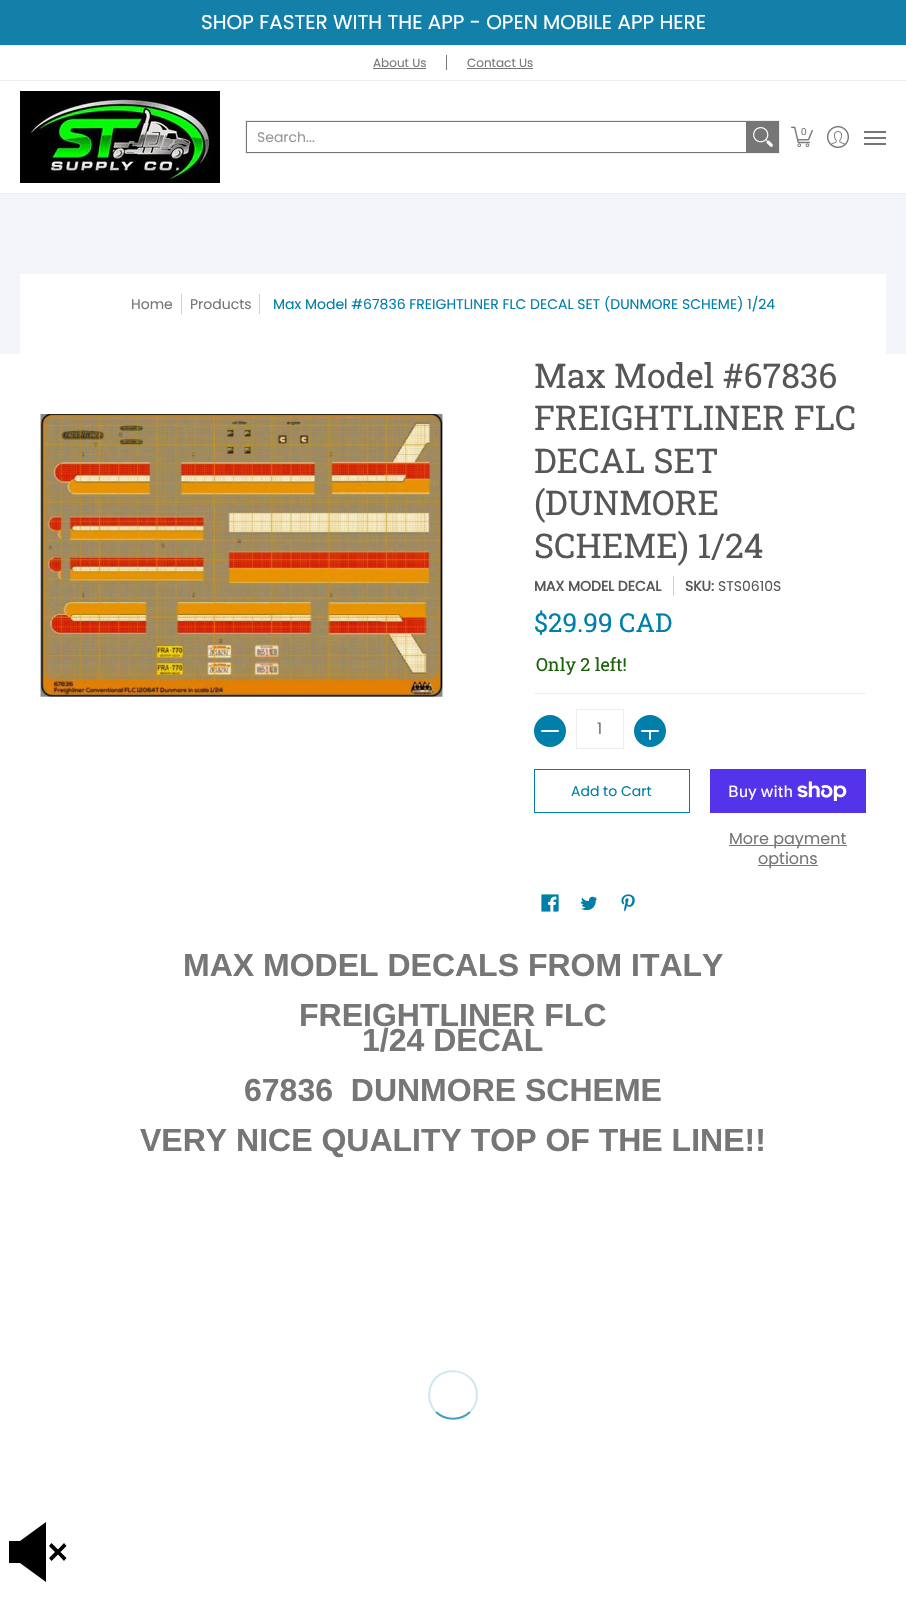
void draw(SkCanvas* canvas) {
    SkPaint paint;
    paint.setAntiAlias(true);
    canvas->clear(0xFFFFFFFF);
    paint.setColor(0xFF1280A8);
    canvas->drawRect(SkRect::MakeXYWH(0, 0, 906, 45), paint);
    SkFont font1(fontMgr->matchFamilyStyle("Poppins", SkFontStyle::Normal()), 20);
    font1.setSubpixel(true);
    paint.setColor(0xFFFFFFFF);
    canvas->drawString("SHOP FASTER WITH THE APP - OPEN MOBILE APP HERE", 201, 29, font1, paint);
    paint.setColor(0xFFEDEEF4);
    canvas->drawRect(SkRect::MakeXYWH(0, 80, 906, 1), paint);
    SkFont font2(fontMgr->matchFamilyStyle("Poppins", SkFontStyle::Normal()), 12);
    font2.setSubpixel(true);
    paint.setColor(0xFF767676);
    canvas->drawString("About Us", 373, 67, font2, paint);
    canvas->drawRect(SkRect::MakeXYWH(373, 68, 53, 1), paint);
    canvas->drawRect(SkRect::MakeXYWH(446, 55, 1, 15), paint);
    canvas->drawString("Contact Us", 467, 67, font2, paint);
    canvas->drawRect(SkRect::MakeXYWH(467, 68, 66, 1), paint);
    paint.setColor(0xFFEDEEF4);
    canvas->drawRect(SkRect::MakeXYWH(0, 193, 906, 1), paint);
    canvas->drawImageRect(SkImages::DeferredFromEncodedData(SkData::MakeFromFileName("img1.png")), SkRect::MakeXYWH(20, 91, 200, 92), SkSamplingOptions());
    paint.setStyle(SkPaint::kStroke_Style);
    paint.setStrokeWidth(1);
    canvas->drawRect(SkRect::MakeXYWH(245.5f, 120.5f, 534, 33), paint);
    paint.setColor(0xFF767676);
    canvas->drawRect(SkRect::MakeXYWH(246.5f, 121.5f, 500, 31), paint);
    SkFont font3(fontMgr->matchFamilyStyle("Poppins", SkFontStyle::Normal()), 14);
    font3.setSubpixel(true);
    paint.setStyle(SkPaint::kFill_Style);
    paint.setColor(0xFF989898);
    canvas->drawString("Search...", 257, 142, font3, paint);
    paint.setColor(0xFF767676);
    canvas->drawRect(SkRect::MakeXYWH(747, 121, 32, 32), paint);
    canvas->drawImageRect(SkImages::DeferredFromEncodedData(SkData::MakeFromFileName("img2.png")), SkRect::MakeXYWH(753, 127, 20, 20), SkSamplingOptions());
    canvas->drawImageRect(SkImages::DeferredFromEncodedData(SkData::MakeFromFileName("img3.png")), SkRect::MakeXYWH(791, 126, 22, 22), SkSamplingOptions());
    SkFont font4(fontMgr->matchFamilyStyle("Liberation Sans", SkFontStyle::Normal()), 10);
    font4.setSubpixel(true);
    canvas->drawString("0", 801, 135, font4, paint);
    canvas->drawImageRect(SkImages::DeferredFromEncodedData(SkData::MakeFromFileName("img4.png")), SkRect::MakeXYWH(827, 126, 22, 22), SkSamplingOptions());
    canvas->drawRect(SkRect::MakeXYWH(864, 131, 22, 2), paint);
    canvas->drawRect(SkRect::MakeXYWH(864, 143, 22, 2), paint);
    canvas->drawRect(SkRect::MakeXYWH(864, 137, 22, 2), paint);
    paint.setColor(0xFFF4F5FA);
    canvas->drawRect(SkRect::MakeXYWH(0, 194, 906, 160), paint);
    paint.setColor(0xFFFFFFFF);
    canvas->drawRect(SkRect::MakeXYWH(20, 274, 866, 80), paint);
    paint.setColor(0xFF767676);
    canvas->drawString("Home", 131, 309, font3, paint);
    paint.setColor(0xFFCDD0E1);
    canvas->drawRect(SkRect::MakeXYWH(181, 294, 1, 20), paint);
    paint.setColor(0xFF767676);
    canvas->drawString("Products", 190, 309, font3, paint);
    paint.setColor(0xFFCDD0E1);
    canvas->drawRect(SkRect::MakeXYWH(259, 294, 1, 20), paint);
    paint.setColor(0xFF007FAA);
    canvas->drawString("Max Model #67836 FREIGHTLINER FLC DECAL SET (DUNMORE SCHEME) 1/24", 273, 309, font3, paint);
    canvas->drawImageRect(SkImages::DeferredFromEncodedData(SkData::MakeFromFileName("img5.png")), SkRect::MakeXYWH(40, 414, 404, 283), SkSamplingOptions());
    SkFont font5(fontMgr->matchFamilyStyle("Roboto Slab", SkFontStyle::Normal()), 34);
    font5.setSubpixel(true);
    paint.setColor(0xFF565656);
    canvas->drawString("Max Model #67836", 534, 388, font5, paint);
    canvas->drawString("FREIGHTLINER FLC", 534, 430, font5, paint);
    canvas->drawString("DECAL SET", 534, 473, font5, paint);
    canvas->drawString("(DUNMORE", 534, 515, font5, paint);
    canvas->drawString("SCHEME) 1/24", 534, 558, font5, paint);
    SkFont font6(fontMgr->matchFamilyStyle("Poppins", SkFontStyle::Bold()), 14);
    font6.setSubpixel(true);
    canvas->drawString("MAX MODEL DECAL", 534, 591, font6, paint);
    paint.setColor(0xFFCDD0E1);
    canvas->drawRect(SkRect::MakeXYWH(673, 576, 1, 20), paint);
    paint.setColor(0xFF565656);
    canvas->drawString("SKU:", 685, 591, font6, paint);
    canvas->drawString("STS0610S", 718, 591, font3, paint);
    SkFont font7(fontMgr->matchFamilyStyle("Roboto Slab", SkFontStyle::Normal()), 26);
    font7.setSubpixel(true);
    paint.setColor(0xFF007FAA);
    canvas->drawString("$29.99 CAD", 534, 632, font7, paint);
    paint.setColor(0xFFEDEEF4);
    canvas->drawRect(SkRect::MakeXYWH(534, 693, 332, 1), paint);
    SkFont font8(fontMgr->matchFamilyStyle("Roboto Slab", SkFontStyle::Normal()), 18);
    font8.setSubpixel(true);
    paint.setColor(0xFF1B6109);
    canvas->drawString("Only 2 left!", 536, 671, font8, paint);
    paint.setColor(0xFF007FAA);
    canvas->drawCircle(550, 731, 16, paint);
    canvas->drawImageRect(SkImages::DeferredFromEncodedData(SkData::MakeFromFileName("img6.png")), SkRect::MakeXYWH(541, 730, 18, 2), SkSamplingOptions());
    paint.setStyle(SkPaint::kStroke_Style);
    paint.setColor(0xFFEDEEF4);
    canvas->drawRect(SkRect::MakeXYWH(576.5f, 709.5f, 47, 39), paint);
    SkFont font9(fontMgr->matchFamilyStyle("Poppins", SkFontStyle::Normal()), 16);
    font9.setSubpixel(true);
    paint.setStyle(SkPaint::kFill_Style);
    paint.setColor(0xFF767676);
    canvas->drawString("1", 597, 734, font9, paint);
    paint.setColor(0xFF007FAA);
    canvas->drawCircle(650, 731, 16, paint);
    canvas->drawImageRect(SkImages::DeferredFromEncodedData(SkData::MakeFromFileName("img7.png")), SkRect::MakeXYWH(641, 730, 18, 10), SkSamplingOptions());
    paint.setStyle(SkPaint::kStroke_Style);
    canvas->drawRect(SkRect::MakeXYWH(534.5f, 769.5f, 155, 43), paint);
    paint.setStyle(SkPaint::kFill_Style);
    canvas->drawString("Add to Cart", 571, 796, font3, paint);
    paint.setColor(0xFF5433EB);
    canvas->drawRect(SkRect::MakeXYWH(710, 769, 156, 44), paint);
    SkFont font10(fontMgr->matchFamilyStyle("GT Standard", SkFontStyle::Normal()), 16);
    font10.setSubpixel(true);
    paint.setColor(0xFFFFFFFF);
    canvas->drawString("Buy with", 728, 797, font10, paint);
    canvas->drawImageRect(SkImages::DeferredFromEncodedData(SkData::MakeFromFileName("img8.png")), SkRect::MakeXYWH(797, 781, 50, 20), SkSamplingOptions());
    paint.setColor(0xFF767676);
    canvas->drawRect(SkRect::MakeXYWH(729, 845, 118, 1), paint);
    canvas->drawString("More payment", 729, 844, font9, paint);
    canvas->drawRect(SkRect::MakeXYWH(758, 865, 60, 1), paint);
    canvas->drawString("options", 758, 864, font9, paint);
    canvas->drawImageRect(SkImages::DeferredFromEncodedData(SkData::MakeFromFileName("img9.png")), SkRect::MakeXYWH(541, 894, 18, 18), SkSamplingOptions());
    canvas->drawImageRect(SkImages::DeferredFromEncodedData(SkData::MakeFromFileName("img10.png")), SkRect::MakeXYWH(580, 896, 17, 15), SkSamplingOptions());
    canvas->drawImageRect(SkImages::DeferredFromEncodedData(SkData::MakeFromFileName("img11.png")), SkRect::MakeXYWH(621, 894, 14, 18), SkSamplingOptions());
    SkFont font11(fontMgr->matchFamilyStyle("Liberation Sans", SkFontStyle::Bold()), 32);
    font11.setSubpixel(true);
    canvas->drawString("MAX MODEL DECALS FROM ITALY", 183, 976, font11, paint);
    canvas->drawString("FREIGHTLINER FLC", 299, 1026, font11, paint);
    canvas->drawString("1/24 DECAL", 362, 1051, font11, paint);
    canvas->drawString("67836  DUNMORE SCHEME", 244, 1101, font11, paint);
    canvas->drawString("VERY NICE QUALITY TOP OF THE LINE!!", 140, 1151, font11, paint);
    paint.setStyle(SkPaint::kStroke_Style);
    paint.setStrokeWidth(2);
    paint.setColor(0xFF409FBF);
    canvas->drawPath(SkPathBuilder().moveTo(470, 1412).cubicTo(460.5f, 1421, 445.5f, 1421, 436, 1412).detach(), paint);
    paint.setColor(0xFFCFE7EF);
    canvas->drawPath(SkPathBuilder().moveTo(436, 1412).cubicTo(430.5f, 1406.5f, 428, 1398, 429.5f, 1390.5f).cubicTo(435, 1362, 477, 1366.5f, 477, 1395).cubicTo(477, 1401.5f, 474.5f, 1407.5f, 470, 1412).detach(), paint);
    paint.setStyle(SkPaint::kFill_Style);
    paint.setColor(0xFF000000);
    canvas->drawPath(SkPathBuilder(SkPathFillType::kEvenOdd).moveTo(46, 1582).lineTo(46, 1522).lineTo(20, 1541).lineTo(9, 1541).lineTo(9, 1563).lineTo(20, 1563).close().moveTo(64, 1543).lineTo(58, 1549.5f).lineTo(51.5f, 1543).lineTo(49, 1546).lineTo(55, 1552).lineTo(49, 1558).lineTo(51.5f, 1561).lineTo(58, 1554.5f).lineTo(64, 1561).lineTo(66.5f, 1558).lineTo(60.5f, 1552).lineTo(66.5f, 1546).close().detach(), paint);
}
